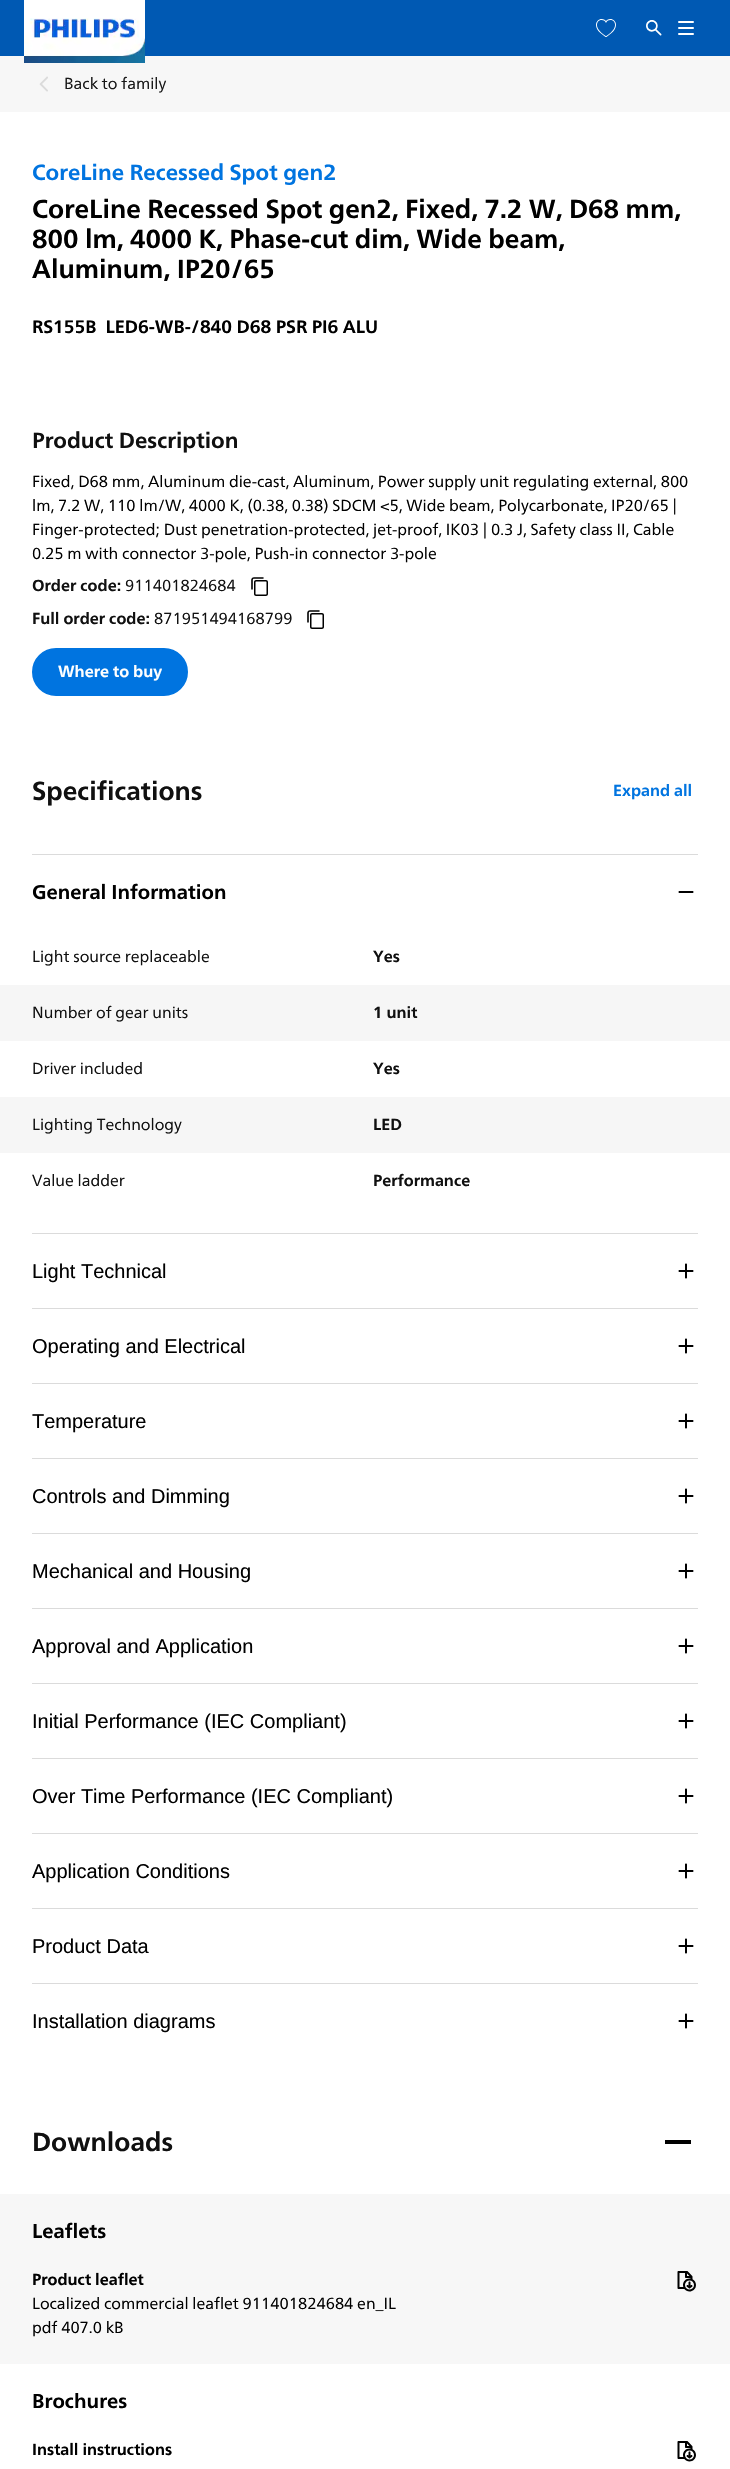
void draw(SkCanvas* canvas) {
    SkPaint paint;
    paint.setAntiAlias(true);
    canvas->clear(0xFFFFFFFF);
    paint.setColor(0xFF0059B3);
    canvas->drawRect(SkRect::MakeXYWH(0, 0, 730, 56), paint);
    paint.setColor(0xFFF7F7F7);
    canvas->drawRect(SkRect::MakeXYWH(0, 56, 730, 56), paint);
    canvas->drawImageRect(SkImages::DeferredFromEncodedData(SkData::MakeFromFileName("img1.png")), SkRect::MakeXYWH(24, 0, 121, 63), SkSamplingOptions());
    canvas->drawImageRect(SkImages::DeferredFromEncodedData(SkData::MakeFromFileName("img2.png")), SkRect::MakeXYWH(596, 19, 20, 18), SkSamplingOptions());
    canvas->drawImageRect(SkImages::DeferredFromEncodedData(SkData::MakeFromFileName("img3.png")), SkRect::MakeXYWH(646, 20, 16, 16), SkSamplingOptions());
    paint.setColor(0xFFFFFFFF);
    canvas->drawRoundRect(SkRect::MakeXYWH(678, 21, 16, 2), 1, 1, paint);
    canvas->drawRoundRect(SkRect::MakeXYWH(678, 27, 16, 2), 1, 1, paint);
    canvas->drawRoundRect(SkRect::MakeXYWH(678, 33, 16, 2), 1, 1, paint);
    canvas->drawImageRect(SkImages::DeferredFromEncodedData(SkData::MakeFromFileName("img4.png")), SkRect::MakeXYWH(39, 76, 9, 16), SkSamplingOptions());
    SkFont font1(fontMgr->matchFamilyStyle("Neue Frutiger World", SkFontStyle::Normal()), 16);
    font1.setSubpixel(true);
    paint.setColor(0xFF171717);
    canvas->drawString("Back to family", 64, 89, font1, paint);
    SkFont font2(fontMgr->matchFamilyStyle("Neue Frutiger World", SkFontStyle::Bold()), 22);
    font2.setSubpixel(true);
    paint.setColor(0xFF0074E0);
    canvas->drawString("CoreLine Recessed Spot gen2", 32, 180, font2, paint);
    SkFont font3(fontMgr->matchFamilyStyle("Neue Frutiger World", SkFontStyle::Bold()), 26);
    font3.setSubpixel(true);
    paint.setColor(0xFF000000);
    canvas->drawString("CoreLine Recessed Spot gen2, Fixed, 7.2 W, D68 mm,", 32, 218, font3, paint);
    canvas->drawString("800 lm, 4000 K, Phase-cut dim, Wide beam,", 32, 248, font3, paint);
    canvas->drawString("Aluminum, IP20/65", 32, 278, font3, paint);
    SkFont font4(fontMgr->matchFamilyStyle("Neue Frutiger World", SkFontStyle::Bold()), 18);
    font4.setSubpixel(true);
    canvas->drawString("RS155B  LED6-WB-/840 D68 PSR PI6 ALU", 32, 333, font4, paint);
    paint.setColor(0xFF101010);
    canvas->drawString("Product Description", 32, 448, font2, paint);
    paint.setColor(0xFF000000);
    canvas->drawString("Fixed, D68 mm, Aluminum die-cast, Aluminum, Power supply unit regulating external, 800", 32, 487, font1, paint);
    canvas->drawString("lm, 7.2 W, 110 lm/W, 4000 K, (0.38, 0.38) SDCM <5, Wide beam, Polycarbonate, IP20/65 |", 32, 511, font1, paint);
    canvas->drawString("Finger-protected; Dust penetration-protected, jet-proof, IK03 | 0.3 J, Safety class II, Cable", 32, 535, font1, paint);
    canvas->drawString("0.25 m with connector 3-pole, Push-in connector 3-pole", 32, 559, font1, paint);
    SkFont font5(fontMgr->matchFamilyStyle("Neue Frutiger World", SkFontStyle::Bold()), 16);
    font5.setSubpixel(true);
    paint.setColor(0xFF101010);
    canvas->drawString("Order code:", 32, 591, font5, paint);
    canvas->drawString("911401824684", 125, 591, font1, paint);
    canvas->drawImageRect(SkImages::DeferredFromEncodedData(SkData::MakeFromFileName("img5.png")), SkRect::MakeXYWH(251, 577, 17, 19), SkSamplingOptions());
    canvas->drawString("Full order code:", 32, 624, font5, paint);
    canvas->drawString("871951494168799", 154, 624, font1, paint);
    canvas->drawImageRect(SkImages::DeferredFromEncodedData(SkData::MakeFromFileName("img5.png")), SkRect::MakeXYWH(307, 610, 17, 19), SkSamplingOptions());
    paint.setColor(0xFF0074E0);
    canvas->drawRoundRect(SkRect::MakeXYWH(33, 649, 154, 46), 23, 23, paint);
    paint.setStyle(SkPaint::kStroke_Style);
    paint.setStrokeWidth(2);
    canvas->drawRoundRect(SkRect::MakeXYWH(33, 649, 154, 46), 23, 23, paint);
    paint.setStyle(SkPaint::kFill_Style);
    paint.setColor(0xFFFFFFFF);
    canvas->drawString("Where to buy", 58, 677, font5, paint);
    paint.setColor(0xFF101010);
    canvas->drawString("Specifications", 32, 800, font3, paint);
    paint.setColor(0xFF0074E0);
    canvas->drawString("Expand all", 613, 796, font5, paint);
    paint.setColor(0xFFDBDBDB);
    canvas->drawRect(SkRect::MakeXYWH(32, 854, 666, 1), paint);
    SkFont font6(fontMgr->matchFamilyStyle("Neue Frutiger World", SkFontStyle::Bold()), 20);
    font6.setSubpixel(true);
    paint.setColor(0xFF000000);
    canvas->drawString("General Information", 32, 899, font6, paint);
    canvas->drawImageRect(SkImages::DeferredFromEncodedData(SkData::MakeFromFileName("img6.png")), SkRect::MakeXYWH(678, 891, 16, 2), SkSamplingOptions());
    paint.setColor(0xFF101010);
    canvas->drawString("Light source replaceable", 32, 962, font1, paint);
    canvas->drawString("Yes", 373, 962, font5, paint);
    paint.setColor(0xFFF6F6F6);
    canvas->drawRect(SkRect::MakeXYWH(0, 985, 730, 56), paint);
    paint.setColor(0xFF101010);
    canvas->drawString("Number of gear units", 32, 1018, font1, paint);
    canvas->drawString("1 unit", 373, 1018, font5, paint);
    canvas->drawString("Driver included", 32, 1074, font1, paint);
    canvas->drawString("Yes", 373, 1074, font5, paint);
    paint.setColor(0xFFF6F6F6);
    canvas->drawRect(SkRect::MakeXYWH(0, 1097, 730, 56), paint);
    paint.setColor(0xFF101010);
    canvas->drawString("Lighting Technology", 32, 1130, font1, paint);
    canvas->drawString("LED", 373, 1130, font5, paint);
    canvas->drawString("Value ladder", 32, 1186, font1, paint);
    canvas->drawString("Performance", 373, 1186, font5, paint);
    paint.setColor(0xFFDBDBDB);
    canvas->drawRect(SkRect::MakeXYWH(32, 1233, 666, 1), paint);
    SkFont font7(fontMgr->matchFamilyStyle("Liberation Sans", SkFontStyle::Normal()), 20);
    font7.setSubpixel(true);
    paint.setColor(0xFF000000);
    canvas->drawString("Light Technical", 32, 1278, font7, paint);
    canvas->drawImageRect(SkImages::DeferredFromEncodedData(SkData::MakeFromFileName("img7.png")), SkRect::MakeXYWH(678, 1263, 16, 16), SkSamplingOptions());
    paint.setColor(0xFFDBDBDB);
    canvas->drawRect(SkRect::MakeXYWH(32, 1308, 666, 1), paint);
    paint.setColor(0xFF000000);
    canvas->drawString("Operating and Electrical", 32, 1353, font7, paint);
    canvas->drawImageRect(SkImages::DeferredFromEncodedData(SkData::MakeFromFileName("img7.png")), SkRect::MakeXYWH(678, 1338, 16, 16), SkSamplingOptions());
    paint.setColor(0xFFDBDBDB);
    canvas->drawRect(SkRect::MakeXYWH(32, 1383, 666, 1), paint);
    paint.setColor(0xFF000000);
    canvas->drawString("Temperature", 32, 1428, font7, paint);
    canvas->drawImageRect(SkImages::DeferredFromEncodedData(SkData::MakeFromFileName("img7.png")), SkRect::MakeXYWH(678, 1413, 16, 16), SkSamplingOptions());
    paint.setColor(0xFFDBDBDB);
    canvas->drawRect(SkRect::MakeXYWH(32, 1458, 666, 1), paint);
    paint.setColor(0xFF000000);
    canvas->drawString("Controls and Dimming", 32, 1503, font7, paint);
    canvas->drawImageRect(SkImages::DeferredFromEncodedData(SkData::MakeFromFileName("img7.png")), SkRect::MakeXYWH(678, 1488, 16, 16), SkSamplingOptions());
    paint.setColor(0xFFDBDBDB);
    canvas->drawRect(SkRect::MakeXYWH(32, 1533, 666, 1), paint);
    paint.setColor(0xFF000000);
    canvas->drawString("Mechanical and Housing", 32, 1578, font7, paint);
    canvas->drawImageRect(SkImages::DeferredFromEncodedData(SkData::MakeFromFileName("img7.png")), SkRect::MakeXYWH(678, 1563, 16, 16), SkSamplingOptions());
    paint.setColor(0xFFDBDBDB);
    canvas->drawRect(SkRect::MakeXYWH(32, 1608, 666, 1), paint);
    paint.setColor(0xFF000000);
    canvas->drawString("Approval and Application", 32, 1653, font7, paint);
    canvas->drawImageRect(SkImages::DeferredFromEncodedData(SkData::MakeFromFileName("img7.png")), SkRect::MakeXYWH(678, 1638, 16, 16), SkSamplingOptions());
    paint.setColor(0xFFDBDBDB);
    canvas->drawRect(SkRect::MakeXYWH(32, 1683, 666, 1), paint);
    paint.setColor(0xFF000000);
    canvas->drawString("Initial Performance (IEC Compliant)", 32, 1728, font7, paint);
    canvas->drawImageRect(SkImages::DeferredFromEncodedData(SkData::MakeFromFileName("img7.png")), SkRect::MakeXYWH(678, 1713, 16, 16), SkSamplingOptions());
    paint.setColor(0xFFDBDBDB);
    canvas->drawRect(SkRect::MakeXYWH(32, 1758, 666, 1), paint);
    paint.setColor(0xFF000000);
    canvas->drawString("Over Time Performance (IEC Compliant)", 32, 1803, font7, paint);
    canvas->drawImageRect(SkImages::DeferredFromEncodedData(SkData::MakeFromFileName("img7.png")), SkRect::MakeXYWH(678, 1788, 16, 16), SkSamplingOptions());
    paint.setColor(0xFFDBDBDB);
    canvas->drawRect(SkRect::MakeXYWH(32, 1833, 666, 1), paint);
    paint.setColor(0xFF000000);
    canvas->drawString("Application Conditions", 32, 1878, font7, paint);
    canvas->drawImageRect(SkImages::DeferredFromEncodedData(SkData::MakeFromFileName("img7.png")), SkRect::MakeXYWH(678, 1863, 16, 16), SkSamplingOptions());
    paint.setColor(0xFFDBDBDB);
    canvas->drawRect(SkRect::MakeXYWH(32, 1908, 666, 1), paint);
    paint.setColor(0xFF000000);
    canvas->drawString("Product Data", 32, 1953, font7, paint);
    canvas->drawImageRect(SkImages::DeferredFromEncodedData(SkData::MakeFromFileName("img7.png")), SkRect::MakeXYWH(678, 1938, 16, 16), SkSamplingOptions());
    paint.setColor(0xFFDBDBDB);
    canvas->drawRect(SkRect::MakeXYWH(32, 1983, 666, 1), paint);
    paint.setColor(0xFF000000);
    canvas->drawString("Installation diagrams", 32, 2028, font7, paint);
    canvas->drawImageRect(SkImages::DeferredFromEncodedData(SkData::MakeFromFileName("img7.png")), SkRect::MakeXYWH(678, 2013, 16, 16), SkSamplingOptions());
    paint.setColor(0xFF101010);
    canvas->drawString("Downloads", 32, 2151, font3, paint);
    paint.setColor(0xFF000000);
    canvas->drawRect(SkRect::MakeXYWH(665, 2140, 26, 4), paint);
    paint.setColor(0xFFF7F7F7);
    canvas->drawRect(SkRect::MakeXYWH(0, 2194, 730, 170), paint);
    paint.setColor(0xFF000000);
    canvas->drawString("Leaflets", 32, 2238, font6, paint);
    canvas->drawString("Product leaflet", 32, 2285, font5, paint);
    canvas->drawString("Localized commercial leaflet 911401824684 en_IL", 32, 2309, font1, paint);
    canvas->drawString("pdf 407.0 kB", 32, 2333, font1, paint);
    canvas->drawImageRect(SkImages::DeferredFromEncodedData(SkData::MakeFromFileName("img8.png")), SkRect::MakeXYWH(677, 2271, 19, 21), SkSamplingOptions());
    canvas->drawString("Brochures", 32, 2408, font6, paint);
    canvas->drawString("Install instructions", 32, 2455, font5, paint);
    canvas->drawImageRect(SkImages::DeferredFromEncodedData(SkData::MakeFromFileName("img9.png")), SkRect::MakeXYWH(677, 2441, 19, 21), SkSamplingOptions());
}
